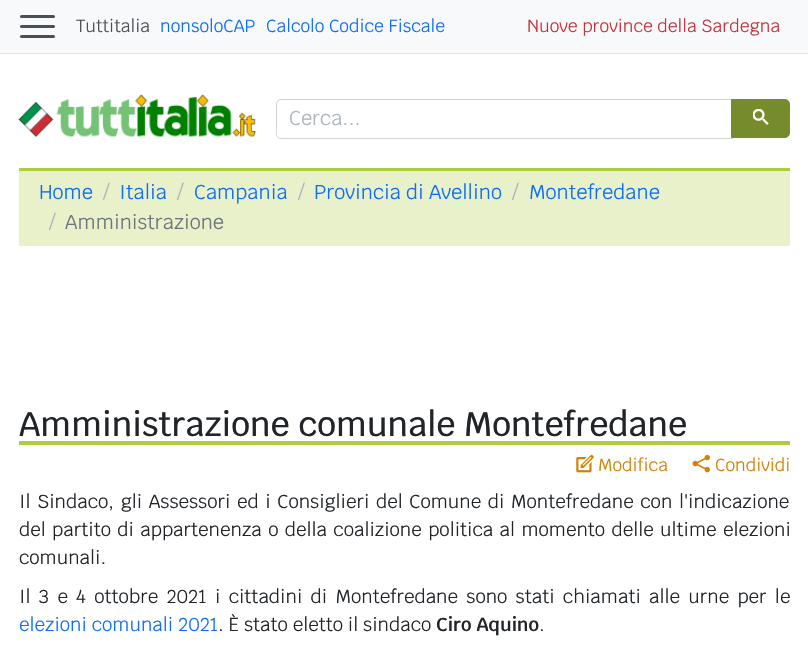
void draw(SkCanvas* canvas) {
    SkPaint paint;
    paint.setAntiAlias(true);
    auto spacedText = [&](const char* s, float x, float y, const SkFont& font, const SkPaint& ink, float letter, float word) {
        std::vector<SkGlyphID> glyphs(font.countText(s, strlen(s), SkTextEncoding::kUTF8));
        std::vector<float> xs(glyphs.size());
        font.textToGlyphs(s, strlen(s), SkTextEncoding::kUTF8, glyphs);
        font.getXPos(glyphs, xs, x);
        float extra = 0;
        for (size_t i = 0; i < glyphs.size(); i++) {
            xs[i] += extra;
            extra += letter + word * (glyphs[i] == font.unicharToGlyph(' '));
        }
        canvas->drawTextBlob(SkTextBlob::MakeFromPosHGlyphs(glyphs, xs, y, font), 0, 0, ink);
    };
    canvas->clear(0xFFFFFFFF);
    paint.setColor(0xFFF8F9FA);
    canvas->drawRect(SkRect::MakeXYWH(0, 0, 808, 53), paint);
    paint.setColor(0xFFDEE2E6);
    canvas->drawRect(SkRect::MakeXYWH(0, 53, 808, 1), paint);
    paint.setColor(0xFF495057);
    canvas->drawRoundRect(SkRect::MakeXYWH(20, 15, 35, 3), 1.5f, 1.5f, paint);
    canvas->drawRoundRect(SkRect::MakeXYWH(20, 25, 35, 3), 1.5f, 1.5f, paint);
    canvas->drawRoundRect(SkRect::MakeXYWH(20, 35, 35, 3), 1.5f, 1.5f, paint);
    SkFont font1(fontMgr->matchFamilyStyle("Krub", SkFontStyle::Normal()), 17.5f);
    font1.setSubpixel(true);
    canvas->drawString("Tuttitalia", 76, 32, font1, paint);
    paint.setColor(0xFF0D6EFB);
    canvas->drawString("nonsoloCAP", 160, 32, font1, paint);
    canvas->drawString("Calcolo Codice Fiscale", 266, 32, font1, paint);
    paint.setColor(0xFFCA313F);
    canvas->drawString("Nuove province della Sardegna", 527, 32, font1, paint);
    canvas->drawImageRect(SkImages::DeferredFromEncodedData(SkData::MakeFromFileName("img1.png")), SkRect::MakeXYWH(18, 94, 239, 43), SkSamplingOptions());
    paint.setStyle(SkPaint::kStroke_Style);
    paint.setStrokeWidth(1);
    paint.setColor(0xFFCED4DA);
    canvas->drawPath(SkPathBuilder().moveTo(281, 99.5f).lineTo(732.5f, 99.5f).lineTo(732.5f, 138.5f).lineTo(281, 138.5f).cubicTo(278.5f, 138.5f, 276.5f, 136.5f, 276.5f, 134).lineTo(276.5f, 104).cubicTo(276.5f, 101.5f, 278.5f, 99.5f, 281, 99.5f).close().detach(), paint);
    SkFont font2(fontMgr->matchFamilyStyle("Krub", SkFontStyle::Normal()), 20);
    font2.setSubpixel(true);
    paint.setStyle(SkPaint::kFill_Style);
    paint.setColor(0xFFADB5BD);
    canvas->drawString("Cerca...", 289, 125, font2, paint);
    paint.setColor(0xFF768B2C);
    canvas->drawPath(SkPathBuilder().moveTo(731.5f, 99.5f).lineTo(785, 99.5f).cubicTo(787.5f, 99.5f, 789.5f, 101.5f, 789.5f, 104).lineTo(789.5f, 133).cubicTo(789.5f, 135.5f, 787.5f, 137.5f, 785, 137.5f).lineTo(731.5f, 137.5f).close().detach(), paint);
    paint.setStyle(SkPaint::kStroke_Style);
    canvas->drawPath(SkPathBuilder().moveTo(731.5f, 99.5f).lineTo(785, 99.5f).cubicTo(787.5f, 99.5f, 789.5f, 101.5f, 789.5f, 104).lineTo(789.5f, 133).cubicTo(789.5f, 135.5f, 787.5f, 137.5f, 785, 137.5f).lineTo(731.5f, 137.5f).close().detach(), paint);
    canvas->drawImageRect(SkImages::DeferredFromEncodedData(SkData::MakeFromFileName("img2.png")), SkRect::MakeXYWH(753, 109, 16, 16), SkSamplingOptions());
    paint.setStyle(SkPaint::kFill_Style);
    paint.setColor(0xFFADCD41);
    canvas->drawRect(SkRect::MakeXYWH(19, 168, 771, 3), paint);
    paint.setColor(0xFFE8F1CA);
    canvas->drawRect(SkRect::MakeXYWH(19, 171, 771, 75), paint);
    paint.setColor(0xFF0D6EFB);
    canvas->drawString("Home", 39, 199, font2, paint);
    paint.setColor(0xFFADB5BD);
    canvas->drawString("/", 103, 199, font2, paint);
    paint.setColor(0xFF0D6EFB);
    canvas->drawString("Italia", 119, 199, font2, paint);
    paint.setColor(0xFFADB5BD);
    canvas->drawString("/", 177, 199, font2, paint);
    paint.setColor(0xFF0D6EFB);
    canvas->drawString("Campania", 194, 199, font2, paint);
    paint.setColor(0xFFADB5BD);
    canvas->drawString("/", 298, 199, font2, paint);
    paint.setColor(0xFF0D6EFB);
    canvas->drawString("Provincia di Avellino", 314, 199, font2, paint);
    paint.setColor(0xFFADB5BD);
    canvas->drawString("/", 512, 199, font2, paint);
    paint.setColor(0xFF0D6EFB);
    canvas->drawString("Montefredane", 529, 199, font2, paint);
    paint.setColor(0xFFADB5BD);
    canvas->drawString("/", 49, 229, font2, paint);
    paint.setColor(0xFF6C757D);
    canvas->drawString("Amministrazione", 65, 229, font2, paint);
    paint.setColor(0xFFADCD41);
    canvas->drawRect(SkRect::MakeXYWH(19, 441, 771, 4), paint);
    SkFont font3(fontMgr->matchFamilyStyle("Krub", SkFontStyle(500, SkFontStyle::kNormal_Width, SkFontStyle::kUpright_Slant)), 33.75f);
    font3.setSubpixel(true);
    paint.setColor(0xFF212529);
    canvas->drawString("Amministrazione comunale Montefredane", 19, 436, font3, paint);
    canvas->drawImageRect(SkImages::DeferredFromEncodedData(SkData::MakeFromFileName("img3.png")), SkRect::MakeXYWH(576, 454, 18, 19), SkSamplingOptions());
    paint.setColor(0xFFD68100);
    canvas->drawString("Modifica", 598, 471, font1, paint);
    canvas->drawImageRect(SkImages::DeferredFromEncodedData(SkData::MakeFromFileName("img4.png")), SkRect::MakeXYWH(692, 454, 18, 19), SkSamplingOptions());
    canvas->drawString("Condividi", 715, 471, font1, paint);
    SkFont font4(fontMgr->matchFamilyStyle("Krub", SkFontStyle::Normal()), 18.75f);
    font4.setSubpixel(true);
    paint.setColor(0xFF212529);
    spacedText("Il Sindaco, gli Assessori ed i Consiglieri del Comune di Montefredane con l'indicazione", 19, 508, font4, paint, 0, 1.75f);
    spacedText("del partito di appartenenza o della coalizione politica al momento delle ultime elezioni", 19, 536, font4, paint, 0, 1.5f);
    canvas->drawString("comunali.", 19, 564, font4, paint);
    spacedText("Il 3 e 4 ottobre 2021 i cittadini di Montefredane sono stati chiamati alle urne per le", 19, 603, font4, paint, 0, 3.4f);
    paint.setColor(0xFF0D6EFB);
    canvas->drawString("elezioni comunali 2021", 19, 631, font4, paint);
    paint.setColor(0xFF212529);
    canvas->drawString(". È stato eletto il sindaco", 218, 631, font4, paint);
    SkFont font5(fontMgr->matchFamilyStyle("Krub", SkFontStyle(600, SkFontStyle::kNormal_Width, SkFontStyle::kUpright_Slant)), 18.75f);
    font5.setSubpixel(true);
    canvas->drawString("Ciro Aquino", 436, 631, font5, paint);
    canvas->drawString(".", 539, 631, font4, paint);
}
